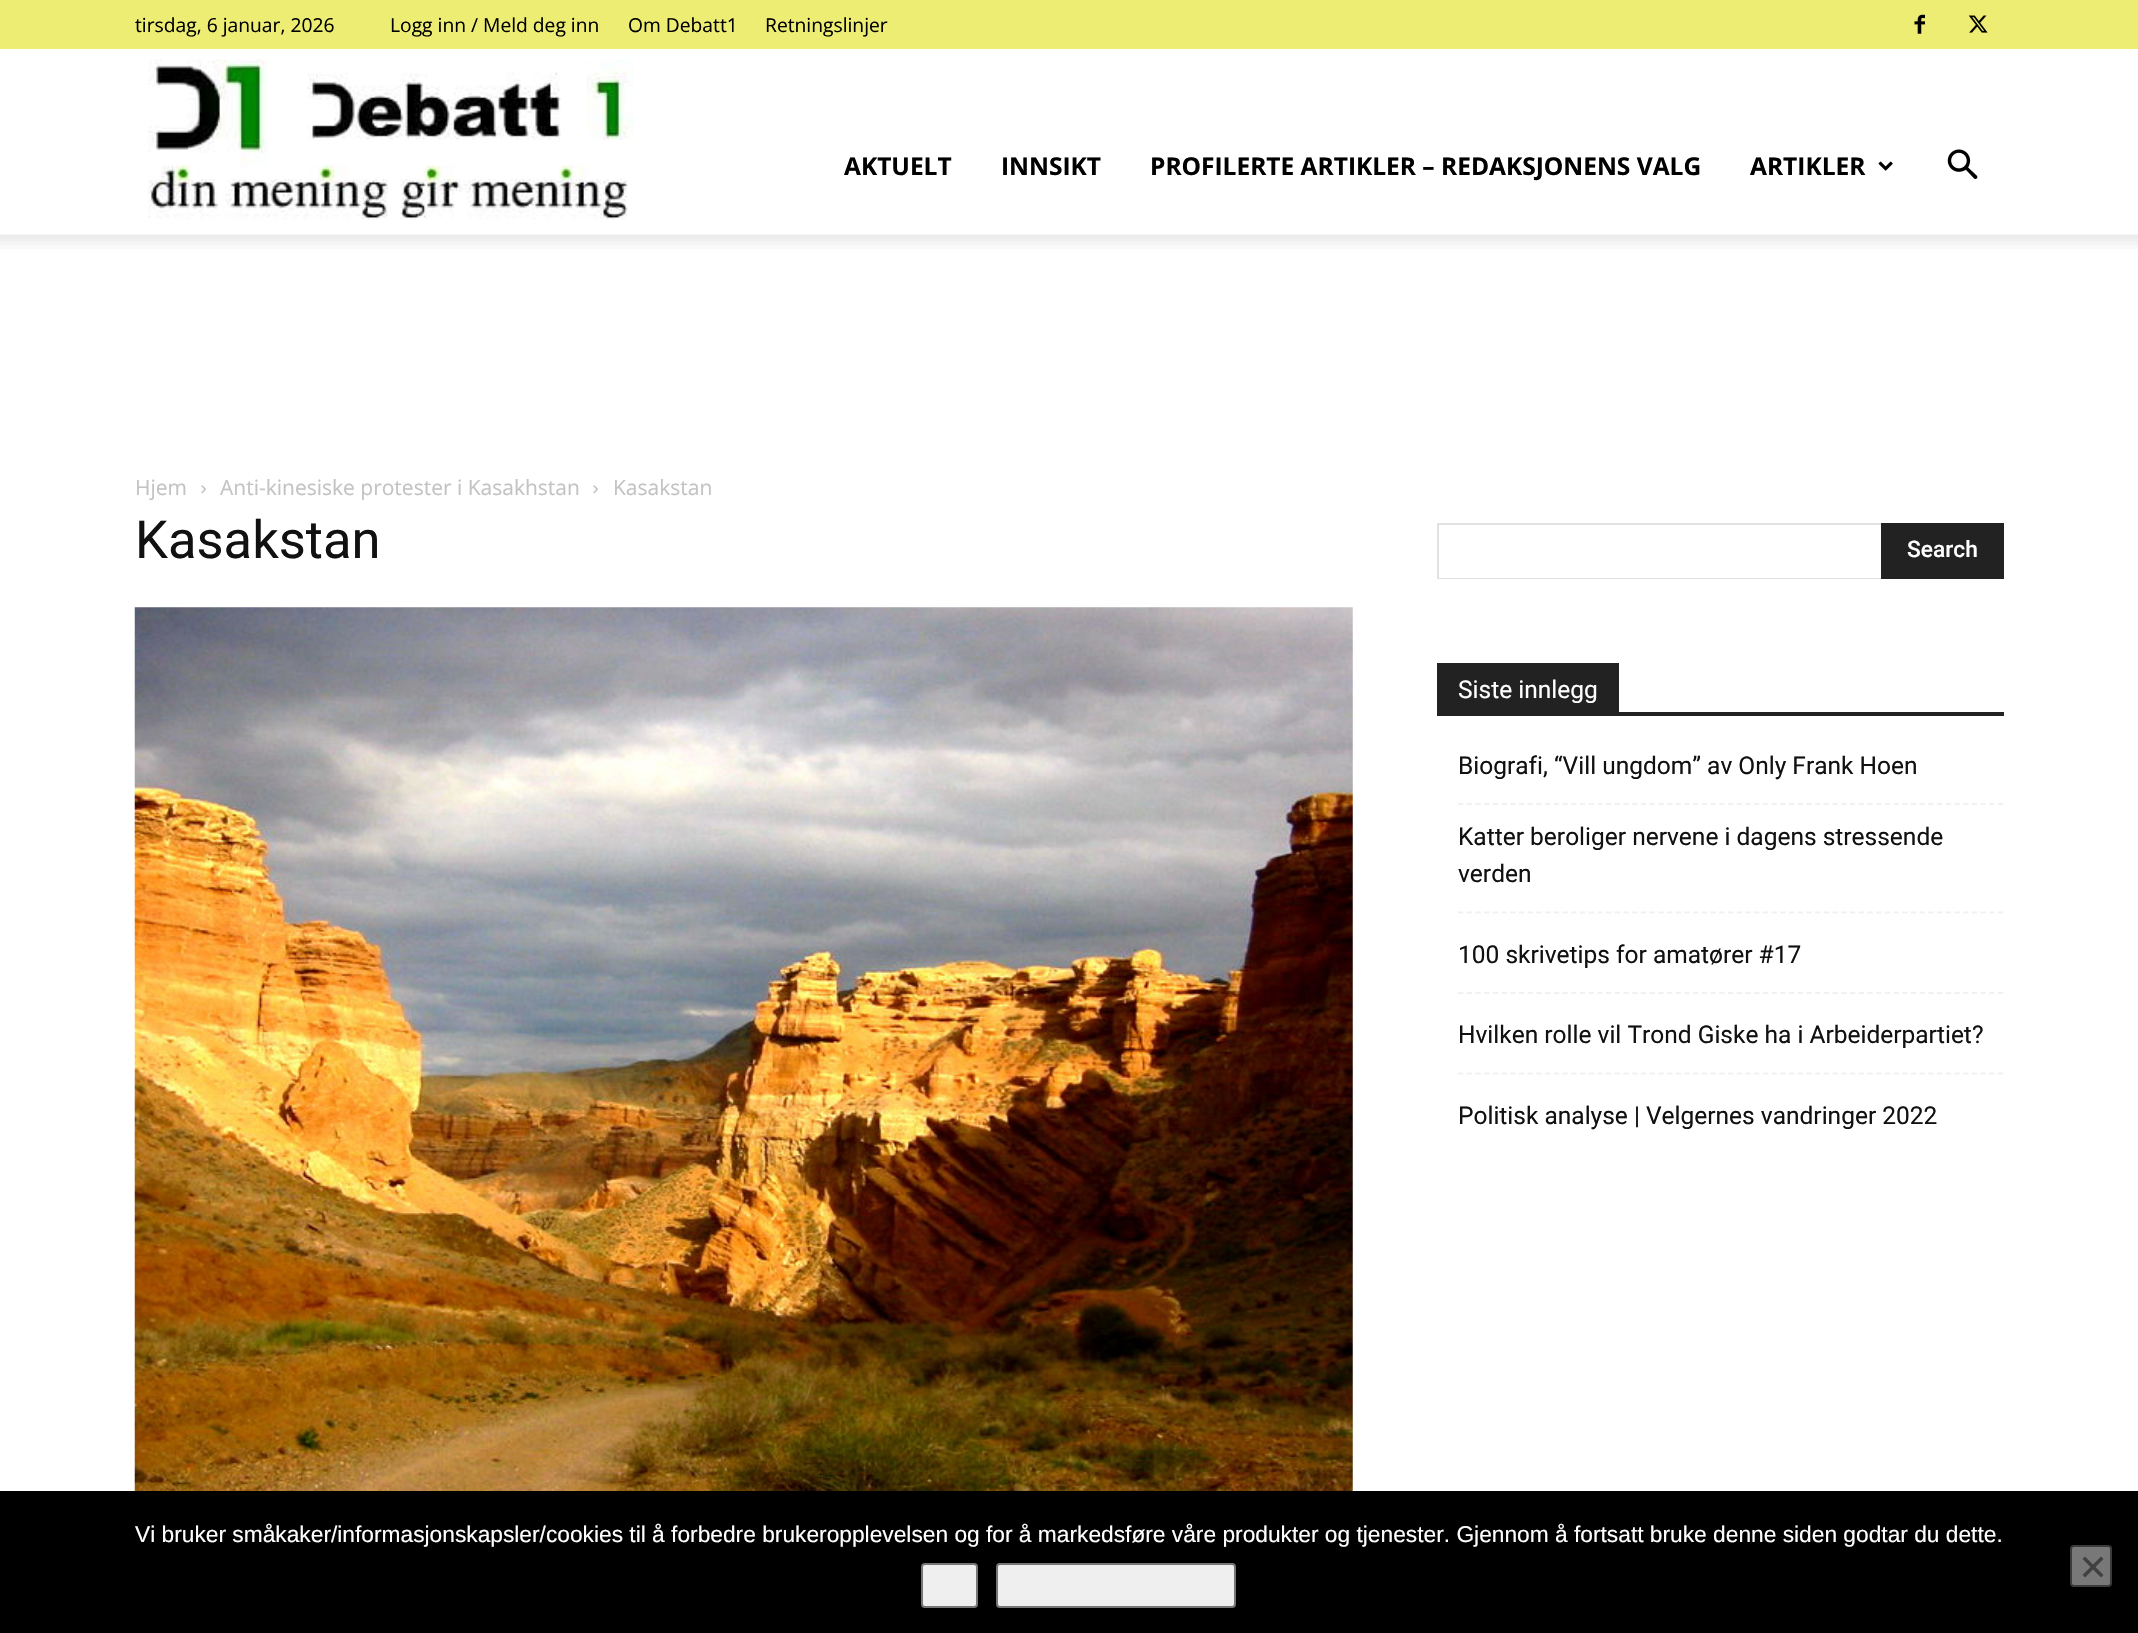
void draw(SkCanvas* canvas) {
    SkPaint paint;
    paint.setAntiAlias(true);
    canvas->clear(0xFFFFFFFF);
    paint.setColor(0xFFEDED74);
    canvas->drawRect(SkRect::MakeXYWH(0, 0, 2138, 49), paint);
    SkFont font1(fontMgr->matchFamilyStyle("Open Sans", SkFontStyle::Normal()), 19.25f);
    font1.setSubpixel(true);
    paint.setColor(0xFF000000);
    canvas->drawString("tirsdag, 6 januar, 2026", 135, 32, font1, paint);
    canvas->drawString("Logg inn / Meld deg inn", 390, 32, font1, paint);
    canvas->drawString("Om Debatt1", 628, 32, font1, paint);
    canvas->drawString("Retningslinjer", 765, 32, font1, paint);
    canvas->drawImageRect(SkImages::DeferredFromEncodedData(SkData::MakeFromFileName("img1.png")), SkRect::MakeXYWH(1914, 14, 11, 20), SkSamplingOptions());
    canvas->drawImageRect(SkImages::DeferredFromEncodedData(SkData::MakeFromFileName("img2.png")), SkRect::MakeXYWH(1968, 15, 20, 18), SkSamplingOptions());
    canvas->drawImageRect(SkImages::DeferredFromEncodedData(SkData::MakeFromFileName("img3.png")), SkRect::MakeXYWH(148, 59, 486, 161), SkSamplingOptions());
    SkFont font2(fontMgr->matchFamilyStyle("Open Sans", SkFontStyle::Bold()), 24.5f);
    font2.setSubpixel(true);
    canvas->drawString("AKTUELT", 844, 175, font2, paint);
    canvas->drawString("INNSIKT", 1001, 175, font2, paint);
    canvas->drawString("PROFILERTE ARTIKLER – REDAKSJONENS VALG", 1150, 175, font2, paint);
    canvas->drawString("ARTIKLER", 1750, 175, font2, paint);
    canvas->drawImageRect(SkImages::DeferredFromEncodedData(SkData::MakeFromFileName("img4.png")), SkRect::MakeXYWH(1878, 161, 15, 10), SkSamplingOptions());
    canvas->drawImageRect(SkImages::DeferredFromEncodedData(SkData::MakeFromFileName("img5.png")), SkRect::MakeXYWH(1947, 149, 31, 30), SkSamplingOptions());
    canvas->drawImageRect(SkImages::DeferredFromEncodedData(SkData::MakeFromFileName("img6.png")), SkRect::MakeXYWH(0, 234, 2138, 15), SkSamplingOptions());
    SkFont font3(fontMgr->matchFamilyStyle("Open Sans", SkFontStyle::Normal()), 21);
    font3.setSubpixel(true);
    paint.setColor(0xFFC3C3C3);
    canvas->drawString("Hjem", 135, 495, font3, paint);
    canvas->drawImageRect(SkImages::DeferredFromEncodedData(SkData::MakeFromFileName("img7.png")), SkRect::MakeXYWH(201, 485, 5, 9), SkSamplingOptions());
    canvas->drawString("Anti-kinesiske protester i Kasakhstan", 220, 495, font3, paint);
    canvas->drawImageRect(SkImages::DeferredFromEncodedData(SkData::MakeFromFileName("img7.png")), SkRect::MakeXYWH(593, 485, 5, 9), SkSamplingOptions());
    canvas->drawString("Kasakstan", 613, 495, font3, paint);
    SkFont font4(fontMgr->matchFamilyStyle("Roboto", SkFontStyle::Normal()), 52.5f);
    font4.setSubpixel(true);
    paint.setColor(0xFF111111);
    canvas->drawString("Kasakstan", 135, 558, font4, paint);
    canvas->drawImageRect(SkImages::DeferredFromEncodedData(SkData::MakeFromFileName("img8.png")), SkRect::MakeXYWH(134, 607, 1219, 884), SkSamplingOptions());
    paint.setColor(0xFFE1E1E1);
    canvas->drawRect(SkRect::MakeXYWH(1437, 523, 444, 2), paint);
    canvas->drawRect(SkRect::MakeXYWH(1437, 578, 444, 1), paint);
    canvas->drawRect(SkRect::MakeXYWH(1437, 523, 2, 56), paint);
    paint.setColor(0xFF222222);
    canvas->drawRect(SkRect::MakeXYWH(1881, 523, 123, 56), paint);
    SkFont font5(fontMgr->matchFamilyStyle("Roboto", SkFontStyle(500, SkFontStyle::kNormal_Width, SkFontStyle::kUpright_Slant)), 22.75f);
    font5.setSubpixel(true);
    paint.setColor(0xFFFFFFFF);
    canvas->drawString("Search", 1907, 557, font5, paint);
    paint.setColor(0xFF222222);
    canvas->drawRect(SkRect::MakeXYWH(1437, 712, 567, 4), paint);
    canvas->drawRect(SkRect::MakeXYWH(1437, 663, 182, 49), paint);
    SkFont font6(fontMgr->matchFamilyStyle("Roboto", SkFontStyle::Normal()), 24.5f);
    font6.setSubpixel(true);
    paint.setColor(0xFFFFFFFF);
    canvas->drawString("Siste innlegg", 1458, 698, font6, paint);
    paint.setStyle(SkPaint::kStroke_Style);
    paint.setStrokeWidth(1.8f);
    paint.setColor(0xFFF1F1F1);
    paint.setPathEffect(SkDashPathEffect::Make({{5.25f, 3.46f}}, 0));
    canvas->drawPath(SkPathBuilder().moveTo(1458, 804).lineTo(2004, 804).detach(), paint);
    paint.setPathEffect(nullptr);
    paint.setStyle(SkPaint::kFill_Style);
    paint.setColor(0xFF111111);
    canvas->drawString("Biografi, “Vill ungdom” av Only Frank Hoen", 1458, 774, font6, paint);
    paint.setStyle(SkPaint::kStroke_Style);
    paint.setColor(0xFFF1F1F1);
    paint.setPathEffect(SkDashPathEffect::Make({{5.25f, 3.46f}}, 0));
    canvas->drawPath(SkPathBuilder().moveTo(1458, 912.5f).lineTo(2004, 912.5f).detach(), paint);
    paint.setPathEffect(nullptr);
    paint.setStyle(SkPaint::kFill_Style);
    paint.setColor(0xFF111111);
    canvas->drawString("Katter beroliger nervene i dagens stressende", 1458, 845, font6, paint);
    canvas->drawString("verden", 1458, 882, font6, paint);
    paint.setStyle(SkPaint::kStroke_Style);
    paint.setColor(0xFFF1F1F1);
    paint.setPathEffect(SkDashPathEffect::Make({{5.25f, 3.46f}}, 0));
    canvas->drawPath(SkPathBuilder().moveTo(1458, 993).lineTo(2004, 993).detach(), paint);
    paint.setPathEffect(nullptr);
    paint.setStyle(SkPaint::kFill_Style);
    paint.setColor(0xFF111111);
    canvas->drawString("100 skrivetips for amatører #17", 1458, 963, font6, paint);
    paint.setStyle(SkPaint::kStroke_Style);
    paint.setColor(0xFFF1F1F1);
    paint.setPathEffect(SkDashPathEffect::Make({{5.25f, 3.46f}}, 0));
    canvas->drawPath(SkPathBuilder().moveTo(1458, 1073.5f).lineTo(2004, 1073.5f).detach(), paint);
    paint.setPathEffect(nullptr);
    paint.setStyle(SkPaint::kFill_Style);
    paint.setColor(0xFF111111);
    canvas->drawString("Hvilken rolle vil Trond Giske ha i Arbeiderpartiet?", 1458, 1043, font6, paint);
    canvas->drawString("Politisk analyse | Velgernes vandringer 2022", 1458, 1124, font6, paint);
    paint.setColor(0xFF000000);
    canvas->drawRect(SkRect::MakeXYWH(0, 1491, 2138, 142), paint);
    SkFont font7(fontMgr->matchFamilyStyle("Liberation Sans", SkFontStyle::Normal()), 22.75f);
    font7.setSubpixel(true);
    paint.setColor(0xFFFFFFFF);
    canvas->drawString("Vi bruker småkaker/informasjonskapsler/cookies til å forbedre brukeropplevelsen og for å markedsføre våre produkter og tjenester. Gjennom å fortsatt bruke denne siden godtar du dette.", 135, 1542, font7, paint);
    paint.setColor(0xFFEFEFEF);
    canvas->drawRoundRect(SkRect::MakeXYWH(922, 1564, 55, 43), 3, 3, paint);
    paint.setStyle(SkPaint::kStroke_Style);
    paint.setStrokeWidth(2);
    paint.setColor(0xFF767676);
    canvas->drawRoundRect(SkRect::MakeXYWH(922, 1564, 55, 43), 3, 3, paint);
    paint.setStyle(SkPaint::kFill_Style);
    paint.setColor(0xFFEFEFEF);
    canvas->drawRoundRect(SkRect::MakeXYWH(997, 1564, 238, 43), 3, 3, paint);
    paint.setStyle(SkPaint::kStroke_Style);
    paint.setColor(0xFF767676);
    canvas->drawRoundRect(SkRect::MakeXYWH(997, 1564, 238, 43), 3, 3, paint);
    paint.setStyle(SkPaint::kFill_Style);
    paint.setColor(0xFF787878);
    canvas->drawRoundRect(SkRect::MakeXYWH(2071, 1546, 40, 40), 3, 3, paint);
    paint.setStyle(SkPaint::kStroke_Style);
    paint.setColor(0xFF3B3B3B);
    canvas->drawRoundRect(SkRect::MakeXYWH(2071, 1546, 40, 40), 3, 3, paint);
    paint.setStyle(SkPaint::kFill_Style);
    paint.setColor(0xFF404040);
    canvas->drawPath(SkPathBuilder().moveTo(2101, 1556.5f).lineTo(2103.5f, 1559).lineTo(2085, 1577.5f).lineTo(2082.5f, 1575).close().detach(), paint);
    canvas->drawPath(SkPathBuilder().moveTo(2082.5f, 1559).lineTo(2085, 1556.5f).lineTo(2103.5f, 1575).lineTo(2101, 1577.5f).close().detach(), paint);
}
